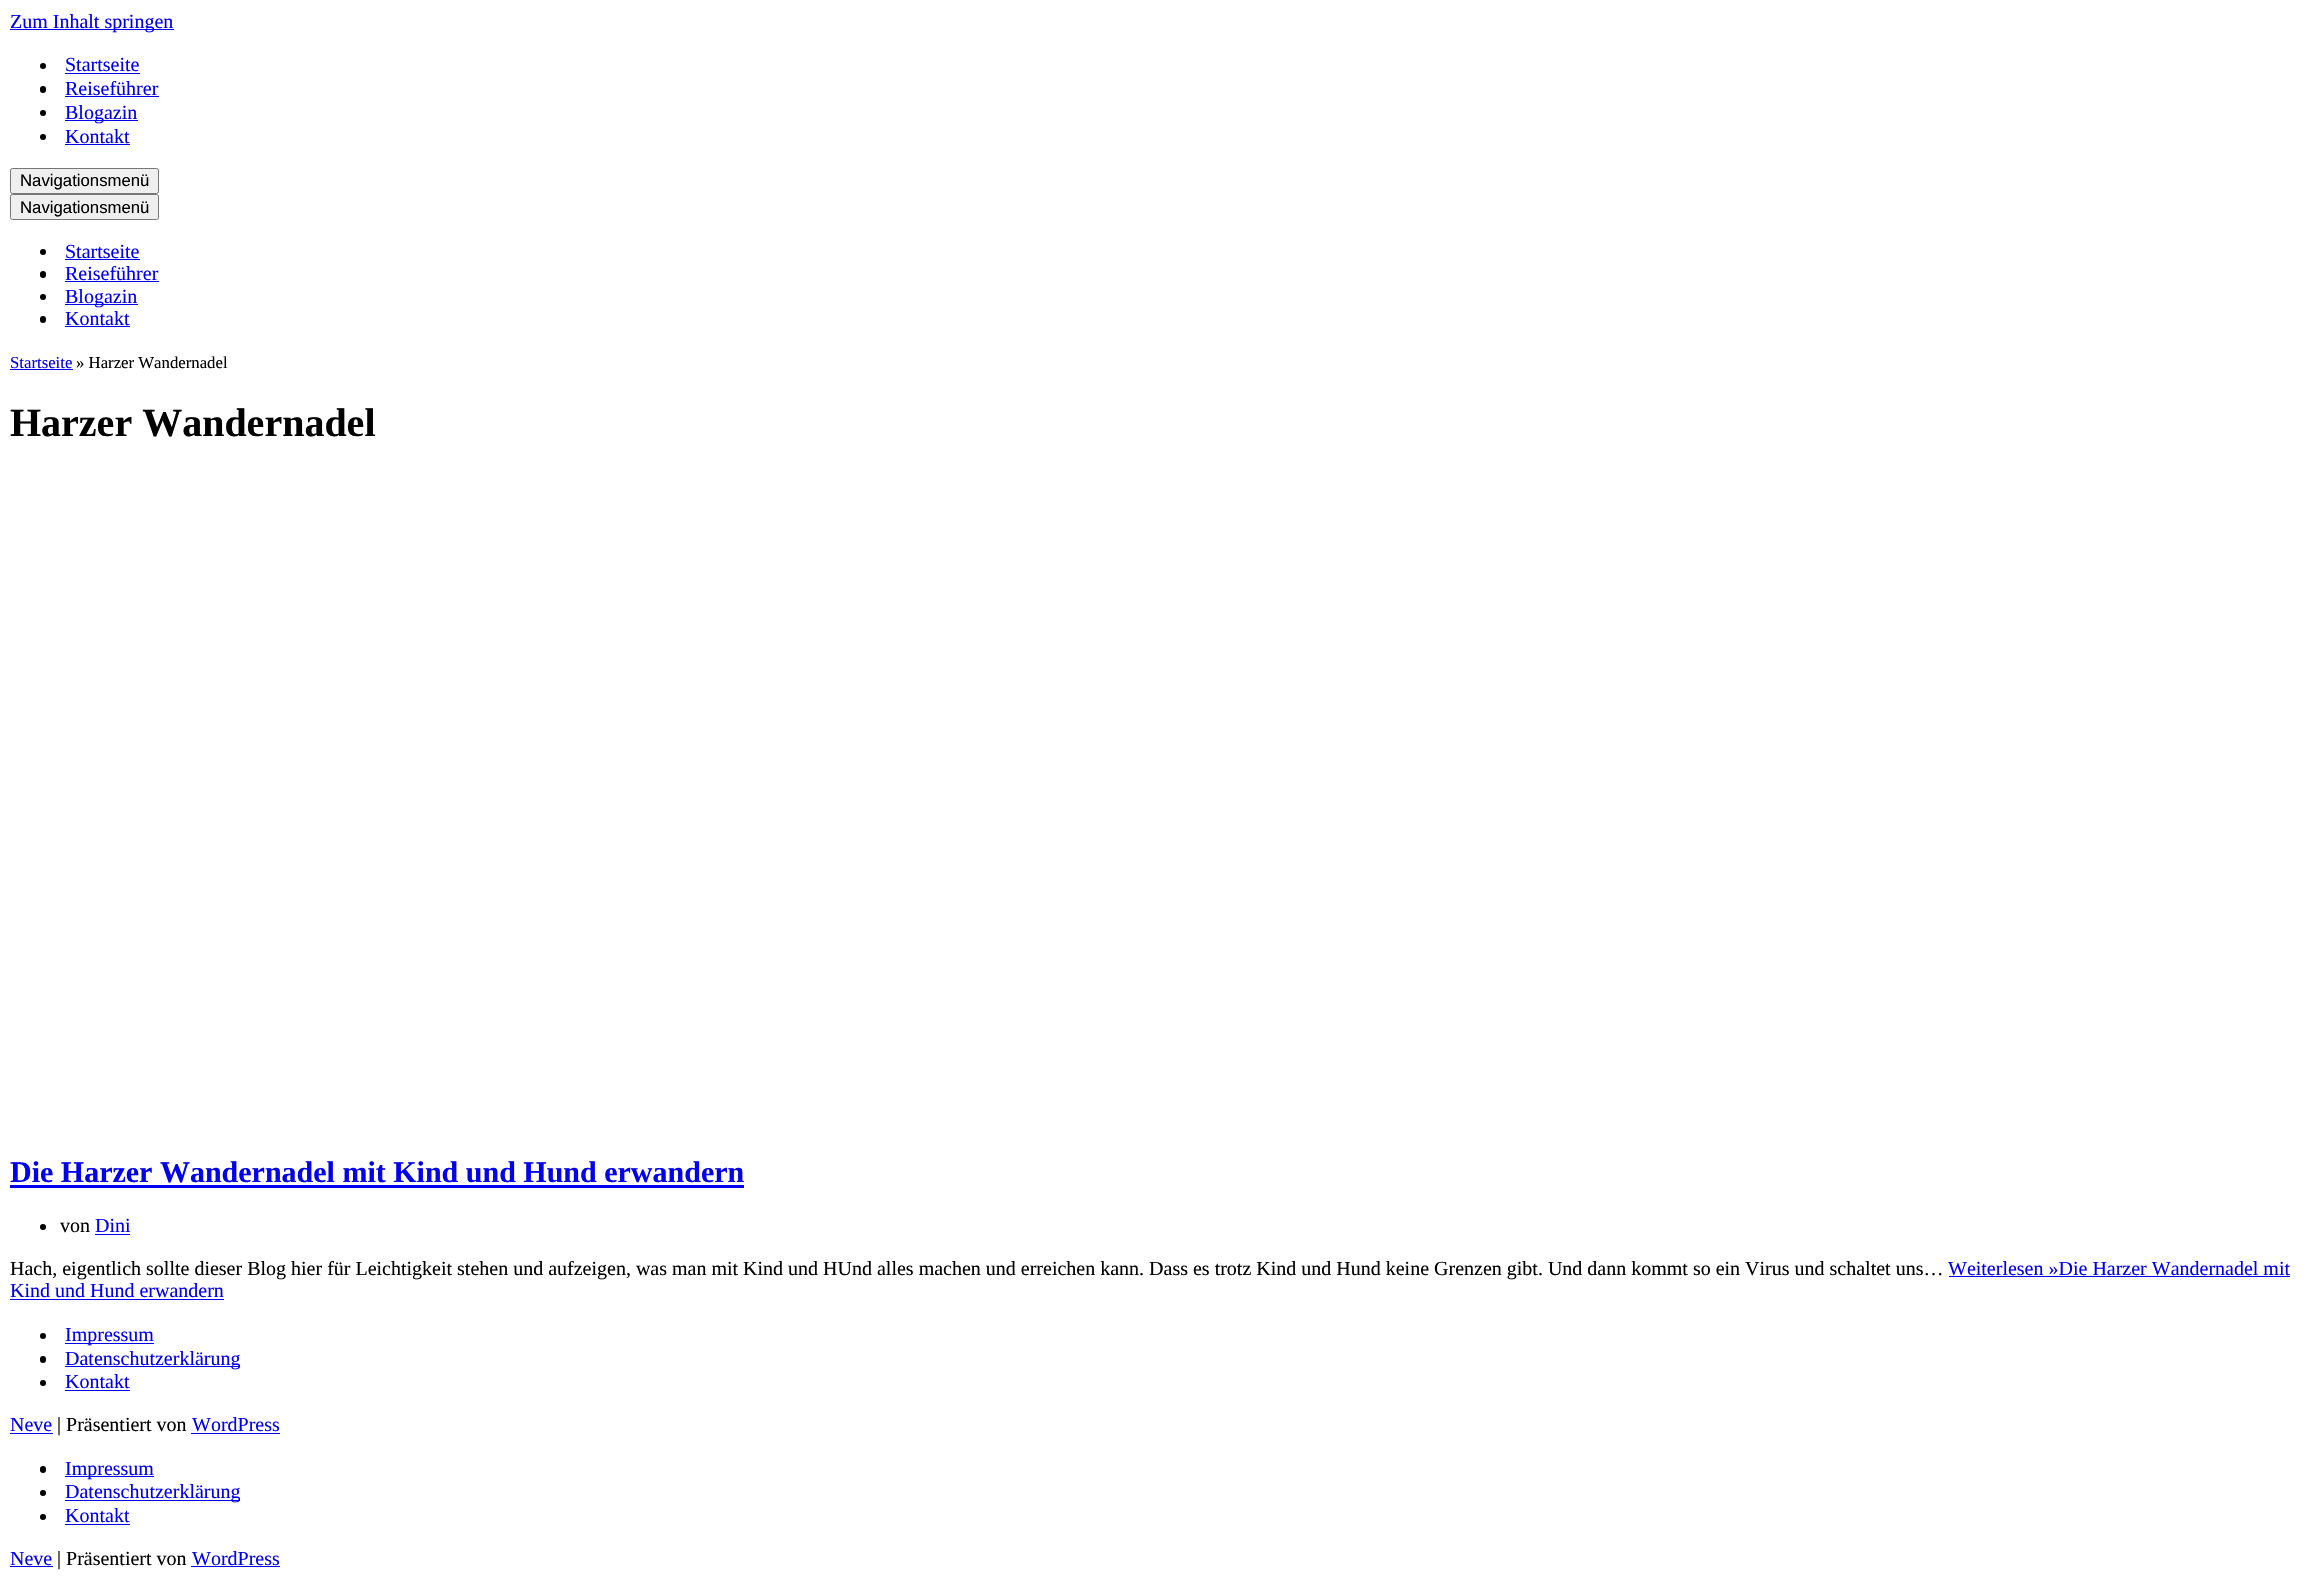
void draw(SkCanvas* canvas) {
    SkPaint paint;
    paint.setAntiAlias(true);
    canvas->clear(0xFFFFFFFF);
    paint.setColor(0xFF0000EE);
    canvas->drawRect(SkRect::MakeXYWH(10, 29, 164, 1), paint);
    SkFont font1(fontMgr->matchFamilyStyle("Liberation Serif", SkFontStyle::Normal()), 20);
    font1.setSubpixel(true);
    canvas->drawString("Zum Inhalt springen", 10, 28, font1, paint);
    paint.setColor(0xFF000000);
    canvas->drawCircle(43, 66, 3, paint);
    paint.setColor(0xFF0000EE);
    canvas->drawString("Startseite", 65, 71, font1, paint);
    canvas->drawRect(SkRect::MakeXYWH(65, 73, 75, 1), paint);
    paint.setColor(0xFF000000);
    canvas->drawRoundRect(SkRect::MakeXYWH(40, 86, 6, 7), 3, 3, paint);
    paint.setColor(0xFF0000EE);
    canvas->drawString("Reiseführer", 65, 95, font1, paint);
    canvas->drawRect(SkRect::MakeXYWH(65, 96, 94, 1), paint);
    paint.setColor(0xFF000000);
    canvas->drawCircle(43, 113, 3, paint);
    paint.setColor(0xFF0000EE);
    canvas->drawRect(SkRect::MakeXYWH(65, 120, 73, 1), paint);
    canvas->drawString("Blogazin", 65, 119, font1, paint);
    paint.setColor(0xFF000000);
    canvas->drawCircle(43, 137, 3, paint);
    paint.setColor(0xFF0000EE);
    canvas->drawString("Kontakt", 65, 143, font1, paint);
    canvas->drawRect(SkRect::MakeXYWH(65, 144, 65, 1), paint);
    paint.setColor(0xFFEFEFEF);
    canvas->drawRoundRect(SkRect::MakeXYWH(10.5f, 168.5f, 148, 25), 2, 2, paint);
    paint.setStyle(SkPaint::kStroke_Style);
    paint.setStrokeWidth(1);
    paint.setColor(0xFF767676);
    canvas->drawRoundRect(SkRect::MakeXYWH(10.5f, 168.5f, 148, 25), 2, 2, paint);
    SkFont font2(fontMgr->matchFamilyStyle("Liberation Sans", SkFontStyle::Normal()), 16.75f);
    font2.setSubpixel(true);
    paint.setStyle(SkPaint::kFill_Style);
    paint.setColor(0xFF000000);
    canvas->drawString("Navigationsmenü", 20, 186, font2, paint);
    paint.setColor(0xFFEFEFEF);
    canvas->drawRoundRect(SkRect::MakeXYWH(10.5f, 194.5f, 148, 25), 2, 2, paint);
    paint.setStyle(SkPaint::kStroke_Style);
    paint.setColor(0xFF767676);
    canvas->drawRoundRect(SkRect::MakeXYWH(10.5f, 194.5f, 148, 25), 2, 2, paint);
    paint.setStyle(SkPaint::kFill_Style);
    paint.setColor(0xFF000000);
    canvas->drawString("Navigationsmenü", 20, 213, font2, paint);
    canvas->drawCircle(43, 252, 3, paint);
    paint.setColor(0xFF0000EE);
    canvas->drawString("Startseite", 65, 258, font1, paint);
    canvas->drawRect(SkRect::MakeXYWH(65, 259, 75, 1), paint);
    paint.setColor(0xFF000000);
    canvas->drawRoundRect(SkRect::MakeXYWH(40, 271, 6, 7), 3, 3, paint);
    paint.setColor(0xFF0000EE);
    canvas->drawString("Reiseführer", 65, 280, font1, paint);
    canvas->drawRect(SkRect::MakeXYWH(65, 281, 94, 1), paint);
    paint.setColor(0xFF000000);
    canvas->drawCircle(43, 297, 3, paint);
    paint.setColor(0xFF0000EE);
    canvas->drawRect(SkRect::MakeXYWH(65, 304, 73, 1), paint);
    canvas->drawString("Blogazin", 65, 303, font1, paint);
    paint.setColor(0xFF000000);
    canvas->drawRoundRect(SkRect::MakeXYWH(40, 316, 6, 7), 3, 3, paint);
    paint.setColor(0xFF0000EE);
    canvas->drawString("Kontakt", 65, 325, font1, paint);
    canvas->drawRect(SkRect::MakeXYWH(65, 326, 65, 1), paint);
    SkFont font3(fontMgr->matchFamilyStyle("Liberation Serif", SkFontStyle::Normal()), 16.75f);
    font3.setSubpixel(true);
    canvas->drawString("Startseite", 10, 368, font3, paint);
    canvas->drawRect(SkRect::MakeXYWH(10, 369, 63, 1), paint);
    paint.setColor(0xFF000000);
    canvas->drawString("» Harzer Wandernadel", 76, 368, font3, paint);
    SkFont font4(fontMgr->matchFamilyStyle("Liberation Serif", SkFontStyle::Bold()), 40);
    font4.setSubpixel(true);
    canvas->drawString("Harzer Wandernadel", 10, 436, font4, paint);
    SkFont font5(fontMgr->matchFamilyStyle("Liberation Serif", SkFontStyle::Bold()), 30);
    font5.setSubpixel(true);
    paint.setColor(0xFF0000EE);
    canvas->drawString("Die Harzer Wandernadel mit Kind und Hund erwandern", 10, 1182, font5, paint);
    canvas->drawRect(SkRect::MakeXYWH(10, 1185, 734, 3), paint);
    paint.setColor(0xFF000000);
    canvas->drawCircle(43, 1227, 3, paint);
    canvas->drawString("von", 60, 1232, font1, paint);
    paint.setColor(0xFF0000EE);
    canvas->drawString("Dini", 95, 1232, font1, paint);
    canvas->drawRect(SkRect::MakeXYWH(95, 1234, 35, 1), paint);
    paint.setColor(0xFF000000);
    canvas->drawString("Hach, eigentlich sollte dieser Blog hier für Leichtigkeit stehen und aufzeigen, was man mit Kind und HUnd alles machen und erreichen kann. Dass es trotz Kind und Hund keine Grenzen gibt. Und dann kommt so ein Virus und schaltet uns…", 10, 1275, font1, paint);
    paint.setColor(0xFF0000EE);
    canvas->drawString("Weiterlesen »Die Harzer Wandernadel mit", 1948, 1275, font1, paint);
    canvas->drawRect(SkRect::MakeXYWH(1949, 1276, 341, 1), paint);
    canvas->drawString("Kind und Hund erwandern", 10, 1297, font1, paint);
    canvas->drawRect(SkRect::MakeXYWH(10, 1299, 214, 1), paint);
    paint.setColor(0xFF000000);
    canvas->drawCircle(43, 1336, 3, paint);
    paint.setColor(0xFF0000EE);
    canvas->drawRect(SkRect::MakeXYWH(65, 1343, 89, 1), paint);
    canvas->drawString("Impressum", 65, 1341, font1, paint);
    paint.setColor(0xFF000000);
    canvas->drawRoundRect(SkRect::MakeXYWH(40, 1356, 6, 7), 3, 3, paint);
    paint.setColor(0xFF0000EE);
    canvas->drawRect(SkRect::MakeXYWH(65, 1366, 175, 1), paint);
    canvas->drawString("Datenschutzerklärung", 65, 1365, font1, paint);
    paint.setColor(0xFF000000);
    canvas->drawCircle(43, 1383, 3, paint);
    paint.setColor(0xFF0000EE);
    canvas->drawString("Kontakt", 65, 1388, font1, paint);
    canvas->drawRect(SkRect::MakeXYWH(65, 1390, 65, 1), paint);
    canvas->drawString("Neve", 10, 1431, font1, paint);
    canvas->drawRect(SkRect::MakeXYWH(10, 1433, 43, 1), paint);
    paint.setColor(0xFF000000);
    canvas->drawString("| Präsentiert von", 57, 1431, font1, paint);
    paint.setColor(0xFF0000EE);
    canvas->drawString("WordPress", 192, 1431, font1, paint);
    canvas->drawRect(SkRect::MakeXYWH(191, 1433, 89, 1), paint);
    paint.setColor(0xFF000000);
    canvas->drawRoundRect(SkRect::MakeXYWH(40, 1466, 6, 7), 3, 3, paint);
    paint.setColor(0xFF0000EE);
    canvas->drawRect(SkRect::MakeXYWH(65, 1476, 89, 1), paint);
    canvas->drawString("Impressum", 65, 1475, font1, paint);
    paint.setColor(0xFF000000);
    canvas->drawCircle(43, 1493, 3, paint);
    paint.setColor(0xFF0000EE);
    canvas->drawRect(SkRect::MakeXYWH(65, 1500, 175, 1), paint);
    canvas->drawString("Datenschutzerklärung", 65, 1498, font1, paint);
    paint.setColor(0xFF000000);
    canvas->drawCircle(43, 1517, 3, paint);
    paint.setColor(0xFF0000EE);
    canvas->drawString("Kontakt", 65, 1522, font1, paint);
    canvas->drawRect(SkRect::MakeXYWH(65, 1524, 65, 1), paint);
    canvas->drawString("Neve", 10, 1565, font1, paint);
    canvas->drawRect(SkRect::MakeXYWH(10, 1566, 43, 1), paint);
    paint.setColor(0xFF000000);
    canvas->drawString("| Präsentiert von", 57, 1565, font1, paint);
    paint.setColor(0xFF0000EE);
    canvas->drawString("WordPress", 192, 1565, font1, paint);
    canvas->drawRect(SkRect::MakeXYWH(191, 1566, 89, 1), paint);
}
